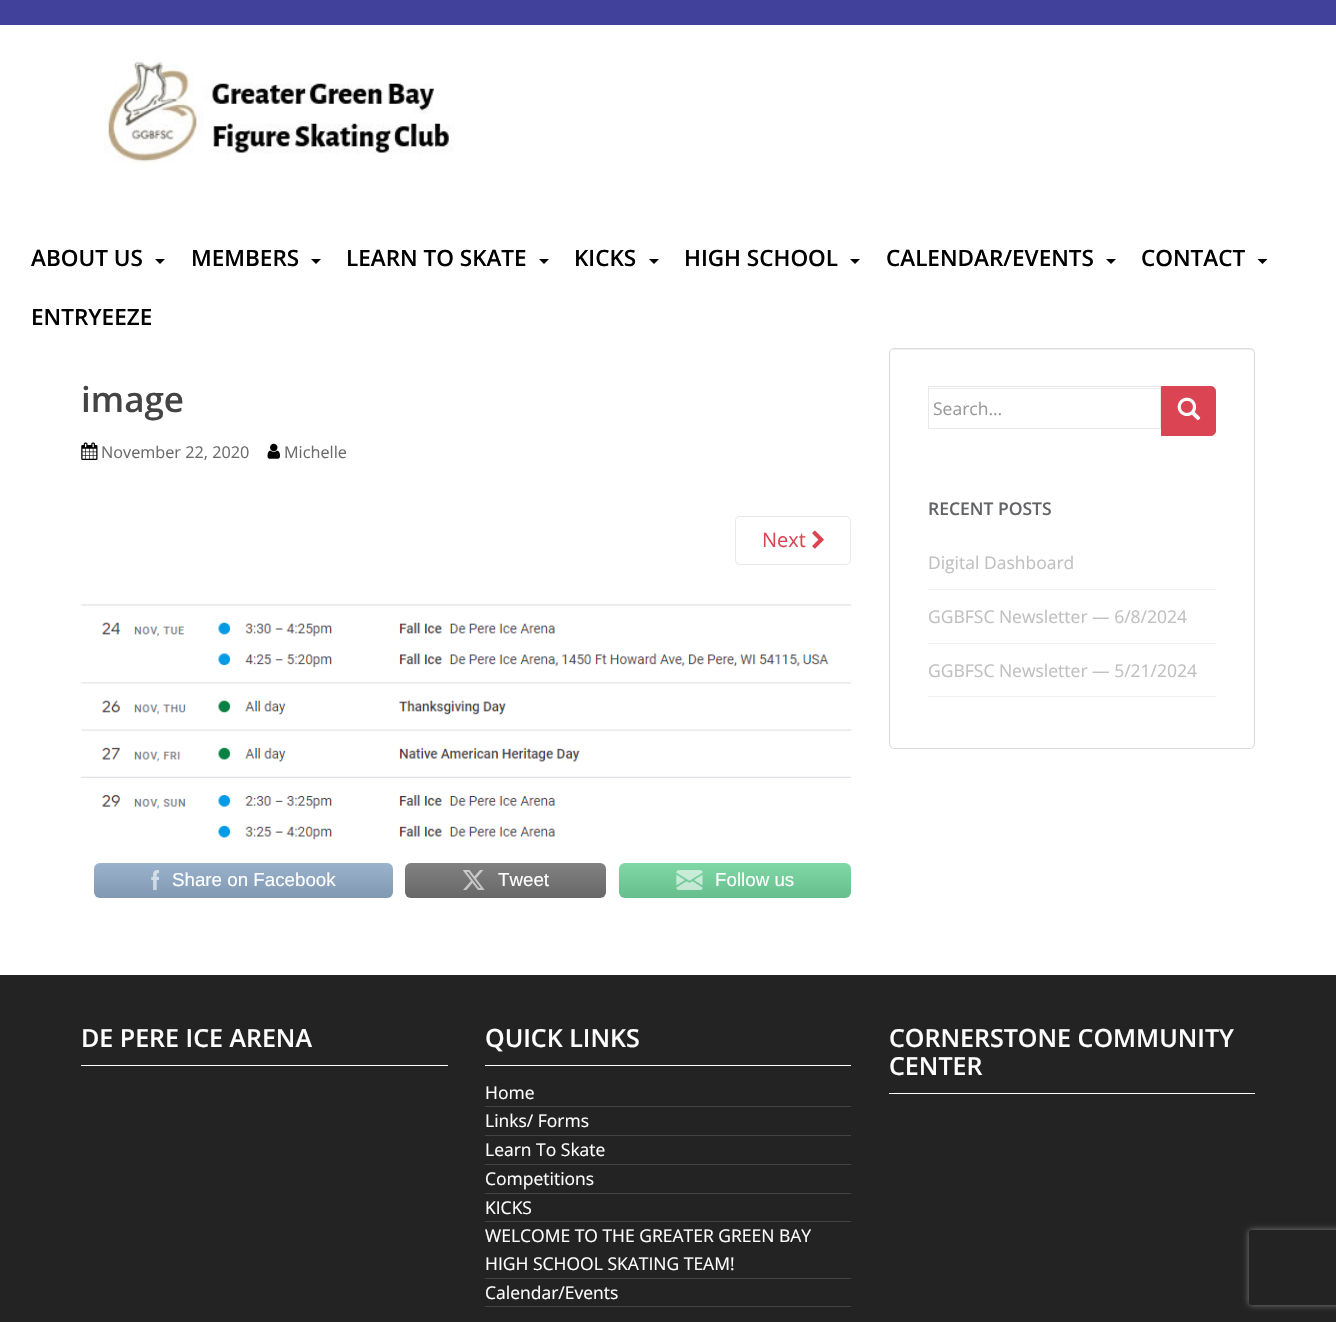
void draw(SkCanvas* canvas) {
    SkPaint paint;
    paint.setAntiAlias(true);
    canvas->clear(0xFFFFFFFF);
    paint.setColor(0xFF41419C);
    canvas->drawRect(SkRect::MakeXYWH(0, 0, 1336, 25), paint);
    canvas->drawImageRect(SkImages::DeferredFromEncodedData(SkData::MakeFromFileName("img1.png")), SkRect::MakeXYWH(104, 56, 350, 108), SkSamplingOptions());
    SkFont font1(fontMgr->matchFamilyStyle("Open Sans", SkFontStyle(600, SkFontStyle::kNormal_Width, SkFontStyle::kUpright_Slant)), 22.5f);
    font1.setSubpixel(true);
    paint.setColor(0xFF000000);
    canvas->drawString("ABOUT US", 31, 266, font1, paint);
    canvas->drawPath(SkPathBuilder().moveTo(155, 259).lineTo(165, 259).lineTo(160, 264).close().detach(), paint);
    canvas->drawString("MEMBERS", 191, 266, font1, paint);
    canvas->drawPath(SkPathBuilder().moveTo(311, 259).lineTo(321, 259).lineTo(316, 264).close().detach(), paint);
    canvas->drawString("LEARN TO SKATE", 346, 266, font1, paint);
    canvas->drawPath(SkPathBuilder().moveTo(539, 259).lineTo(549, 259).lineTo(544, 264).close().detach(), paint);
    canvas->drawString("KICKS", 574, 266, font1, paint);
    canvas->drawPath(SkPathBuilder().moveTo(649, 259).lineTo(659, 259).lineTo(654, 264).close().detach(), paint);
    canvas->drawString("HIGH SCHOOL", 684, 266, font1, paint);
    canvas->drawPath(SkPathBuilder().moveTo(850, 259).lineTo(860, 259).lineTo(855, 264).close().detach(), paint);
    canvas->drawString("CALENDAR/EVENTS", 886, 266, font1, paint);
    canvas->drawPath(SkPathBuilder().moveTo(1106, 259).lineTo(1116, 259).lineTo(1111, 264).close().detach(), paint);
    canvas->drawString("CONTACT", 1141, 266, font1, paint);
    canvas->drawPath(SkPathBuilder().moveTo(1257.5f, 259).lineTo(1267.5f, 259).lineTo(1262.5f, 264).close().detach(), paint);
    canvas->drawString("ENTRYEEZE", 31, 325, font1, paint);
    SkFont font2(fontMgr->matchFamilyStyle("Open Sans", SkFontStyle(600, SkFontStyle::kNormal_Width, SkFontStyle::kUpright_Slant)), 35);
    font2.setSubpixel(true);
    paint.setColor(0xFF444444);
    canvas->drawString("image", 81, 412, font2, paint);
    canvas->drawImageRect(SkImages::DeferredFromEncodedData(SkData::MakeFromFileName("img2.png")), SkRect::MakeXYWH(81, 442, 17, 18), SkSamplingOptions());
    SkFont font3(fontMgr->matchFamilyStyle("Open Sans", SkFontStyle::Normal()), 16.25f);
    font3.setSubpixel(true);
    paint.setColor(0xFF6B6B6B);
    canvas->drawString("November 22, 2020", 101, 458, font3, paint);
    canvas->drawImageRect(SkImages::DeferredFromEncodedData(SkData::MakeFromFileName("img3.png")), SkRect::MakeXYWH(267, 443, 13, 16), SkSamplingOptions());
    canvas->drawString("Michelle", 284, 458, font3, paint);
    paint.setStyle(SkPaint::kStroke_Style);
    paint.setStrokeWidth(1);
    paint.setColor(0xFFE8E8E8);
    canvas->drawRoundRect(SkRect::MakeXYWH(735.5f, 516.5f, 115, 48), 4.5f, 4.5f, paint);
    SkFont font4(fontMgr->matchFamilyStyle("Open Sans", SkFontStyle::Normal()), 20);
    font4.setSubpixel(true);
    paint.setStyle(SkPaint::kFill_Style);
    paint.setColor(0xFFDA4453);
    canvas->drawString("Next", 762, 547, font4, paint);
    canvas->drawImageRect(SkImages::DeferredFromEncodedData(SkData::MakeFromFileName("img4.png")), SkRect::MakeXYWH(812, 530, 12, 19), SkSamplingOptions());
    canvas->drawImageRect(SkImages::DeferredFromEncodedData(SkData::MakeFromFileName("img5.png")), SkRect::MakeXYWH(81, 604, 771, 236), SkSamplingOptions());
    paint.setColor(0xFF85A3C2);
    canvas->drawRoundRect(SkRect::MakeXYWH(94, 863, 299, 35), 6, 6, paint);
    {
        const SkColor colors[] = {0x2B666666, 0x2BFFFFFF};
        const float stops[] = {0, 1};
        const SkPoint ends[] = {{243, 898}, {243, 863}};
        paint.setShader(SkGradientShader::MakeLinear(ends, colors, stops, 2, SkTileMode::kClamp));
        paint.setAlpha(255);
    }
    canvas->drawRoundRect(SkRect::MakeXYWH(94, 863, 299, 35), 6, 6, paint);
    canvas->drawImageRect(SkImages::DeferredFromEncodedData(SkData::MakeFromFileName("img6.png")), SkRect::MakeXYWH(151, 870, 8, 20), SkSamplingOptions());
    SkFont font5(fontMgr->matchFamilyStyle("Liberation Sans", SkFontStyle::Normal()), 18.75f);
    font5.setSubpixel(true);
    paint.setShader(nullptr);
    paint.setColor(0xFFFFFFFF);
    canvas->drawString("Share on Facebook", 172, 886, font5, paint);
    paint.setColor(0xFF676767);
    canvas->drawRoundRect(SkRect::MakeXYWH(405, 863, 201, 35), 6, 6, paint);
    {
        const SkColor colors[] = {0x2B666666, 0x2BFFFFFF};
        const float stops[] = {0, 1};
        const SkPoint ends[] = {{506, 898}, {506, 863}};
        paint.setShader(SkGradientShader::MakeLinear(ends, colors, stops, 2, SkTileMode::kClamp));
        paint.setAlpha(255);
    }
    canvas->drawRoundRect(SkRect::MakeXYWH(405, 863, 201, 35), 6, 6, paint);
    canvas->drawImageRect(SkImages::DeferredFromEncodedData(SkData::MakeFromFileName("img7.png")), SkRect::MakeXYWH(463, 870, 22, 20), SkSamplingOptions());
    paint.setShader(nullptr);
    paint.setColor(0xFFFFFFFF);
    canvas->drawString("Tweet", 498, 886, font5, paint);
    paint.setColor(0xFF66D095);
    canvas->drawRoundRect(SkRect::MakeXYWH(619, 863, 232, 35), 6, 6, paint);
    {
        const SkColor colors[] = {0x2B666666, 0x2BFFFFFF};
        const float stops[] = {0, 1};
        const SkPoint ends[] = {{735, 898}, {735, 863}};
        paint.setShader(SkGradientShader::MakeLinear(ends, colors, stops, 2, SkTileMode::kClamp));
        paint.setAlpha(255);
    }
    canvas->drawRoundRect(SkRect::MakeXYWH(619, 863, 232, 35), 6, 6, paint);
    canvas->drawImageRect(SkImages::DeferredFromEncodedData(SkData::MakeFromFileName("img8.png")), SkRect::MakeXYWH(676, 870, 27, 20), SkSamplingOptions());
    paint.setShader(nullptr);
    paint.setColor(0xFFFFFFFF);
    canvas->drawString("Follow us", 715, 886, font5, paint);
    paint.setColor(0xFFF2F2F2);
    canvas->drawPath(SkPathBuilder().moveTo(894, 350).lineTo(1250, 350).cubicTo(1252, 350, 1254, 352, 1254, 354).cubicTo(1254, 351, 1253, 349, 1250, 349).lineTo(893, 349).lineTo(891, 351).lineTo(890, 354).cubicTo(890, 352, 892, 350, 894, 350).close().detach(), paint);
    paint.setStyle(SkPaint::kStroke_Style);
    paint.setColor(0xFFDADADA);
    canvas->drawRoundRect(SkRect::MakeXYWH(889.5f, 348.5f, 365, 400), 4.5f, 4.5f, paint);
    paint.setStyle(SkPaint::kFill_Style);
    paint.setColor(0xFFECECEC);
    canvas->drawRect(SkRect::MakeXYWH(929, 388, 231, 1), paint);
    paint.setStyle(SkPaint::kStroke_Style);
    paint.setColor(0xFFE8E8E8);
    canvas->drawRect(SkRect::MakeXYWH(928.5f, 386.5f, 232, 42), paint);
    SkFont font6(fontMgr->matchFamilyStyle("Open Sans", SkFontStyle::Normal()), 17.5f);
    font6.setSubpixel(true);
    paint.setStyle(SkPaint::kFill_Style);
    paint.setColor(0xFF999999);
    canvas->drawString("Search…", 933, 415, font6, paint);
    paint.setColor(0xFFDA4453);
    canvas->drawPath(SkPathBuilder().moveTo(1161.5f, 386.5f).lineTo(1211, 386.5f).cubicTo(1213.5f, 386.5f, 1215.5f, 388.5f, 1215.5f, 391).lineTo(1215.5f, 431).cubicTo(1215.5f, 433.5f, 1213.5f, 435.5f, 1211, 435.5f).lineTo(1161.5f, 435.5f).close().detach(), paint);
    paint.setStyle(SkPaint::kStroke_Style);
    canvas->drawPath(SkPathBuilder().moveTo(1161.5f, 386.5f).lineTo(1211, 386.5f).cubicTo(1213.5f, 386.5f, 1215.5f, 388.5f, 1215.5f, 391).lineTo(1215.5f, 431).cubicTo(1215.5f, 433.5f, 1213.5f, 435.5f, 1211, 435.5f).lineTo(1161.5f, 435.5f).close().detach(), paint);
    canvas->drawImageRect(SkImages::DeferredFromEncodedData(SkData::MakeFromFileName("img9.png")), SkRect::MakeXYWH(1177, 397, 24, 24), SkSamplingOptions());
    SkFont font7(fontMgr->matchFamilyStyle("Open Sans", SkFontStyle(600, SkFontStyle::kNormal_Width, SkFontStyle::kUpright_Slant)), 17.5f);
    font7.setSubpixel(true);
    paint.setStyle(SkPaint::kFill_Style);
    paint.setColor(0xFF636467);
    canvas->drawString("RECENT POSTS", 928, 515, font7, paint);
    paint.setColor(0xFFF2F2F2);
    canvas->drawRect(SkRect::MakeXYWH(928, 589, 288, 1), paint);
    paint.setColor(0xFFC1C0C0);
    canvas->drawString("Digital Dashboard", 928, 569, font6, paint);
    paint.setColor(0xFFF2F2F2);
    canvas->drawRect(SkRect::MakeXYWH(928, 643, 288, 1), paint);
    paint.setColor(0xFFC1C0C0);
    canvas->drawString("GGBFSC Newsletter — 6/8/2024", 928, 623, font6, paint);
    paint.setColor(0xFFF2F2F2);
    canvas->drawRect(SkRect::MakeXYWH(928, 696, 288, 1), paint);
    paint.setColor(0xFFC1C0C0);
    canvas->drawString("GGBFSC Newsletter — 5/21/2024", 928, 677, font6, paint);
    paint.setColor(0xFF232323);
    canvas->drawRect(SkRect::MakeXYWH(0, 975, 1336, 347), paint);
    paint.setColor(0xFFFFFFFF);
    canvas->drawRect(SkRect::MakeXYWH(81, 1065, 367, 1), paint);
    SkFont font8(fontMgr->matchFamilyStyle("Open Sans", SkFontStyle(600, SkFontStyle::kNormal_Width, SkFontStyle::kUpright_Slant)), 25);
    font8.setSubpixel(true);
    canvas->drawString("DE PERE ICE ARENA", 81, 1047, font8, paint);
    canvas->drawRect(SkRect::MakeXYWH(485, 1065, 366, 1), paint);
    canvas->drawString("QUICK LINKS", 485, 1047, font8, paint);
    paint.setColor(0xFF444444);
    canvas->drawRect(SkRect::MakeXYWH(485, 1106, 366, 1), paint);
    paint.setColor(0xFFFFFFFF);
    canvas->drawString("Home", 485, 1099, font6, paint);
    paint.setColor(0xFF444444);
    canvas->drawRect(SkRect::MakeXYWH(485, 1135, 366, 1), paint);
    paint.setColor(0xFFFFFFFF);
    canvas->drawString("Links/ Forms", 485, 1127, font6, paint);
    paint.setColor(0xFF444444);
    canvas->drawRect(SkRect::MakeXYWH(485, 1164, 366, 1), paint);
    paint.setColor(0xFFFFFFFF);
    canvas->drawString("Learn To Skate", 485, 1156, font6, paint);
    paint.setColor(0xFF444444);
    canvas->drawRect(SkRect::MakeXYWH(485, 1193, 366, 1), paint);
    paint.setColor(0xFFFFFFFF);
    canvas->drawString("Competitions", 485, 1185, font6, paint);
    paint.setColor(0xFF444444);
    canvas->drawRect(SkRect::MakeXYWH(485, 1221, 366, 1), paint);
    paint.setColor(0xFFFFFFFF);
    canvas->drawString("KICKS", 485, 1214, font6, paint);
    paint.setColor(0xFF444444);
    canvas->drawRect(SkRect::MakeXYWH(485, 1278, 366, 1), paint);
    paint.setColor(0xFFFFFFFF);
    canvas->drawString("WELCOME TO THE GREATER GREEN BAY", 485, 1242, font6, paint);
    canvas->drawString("HIGH SCHOOL SKATING TEAM!", 485, 1270, font6, paint);
    paint.setColor(0xFF444444);
    canvas->drawRect(SkRect::MakeXYWH(485, 1306, 366, 1), paint);
    paint.setColor(0xFFFFFFFF);
    canvas->drawString("Calendar/Events", 485, 1299, font6, paint);
    canvas->drawRect(SkRect::MakeXYWH(889, 1093, 366, 1), paint);
    canvas->drawString("CORNERSTONE COMMUNITY", 889, 1047, font8, paint);
    canvas->drawString("CENTER", 889, 1075, font8, paint);
    canvas->save();
    canvas->clipPath(SkPathBuilder(SkPathFillType::kEvenOdd).moveTo(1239, 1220).lineTo(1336, 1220).lineTo(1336, 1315).lineTo(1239, 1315).close().moveTo(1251.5f, 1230).lineTo(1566.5f, 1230).cubicTo(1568, 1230, 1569, 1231, 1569, 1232.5f).lineTo(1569, 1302.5f).cubicTo(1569, 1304, 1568, 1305, 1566.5f, 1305).lineTo(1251.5f, 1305).cubicTo(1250, 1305, 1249, 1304, 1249, 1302.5f).lineTo(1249, 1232.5f).cubicTo(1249, 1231, 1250, 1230, 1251.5f, 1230).close().detach(), true);
    paint.setColor(0xFF808080);
    paint.setMaskFilter(SkMaskFilter::MakeBlur(kNormal_SkBlurStyle, 3));
    canvas->drawRoundRect(SkRect::MakeXYWH(1249, 1230, 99, 75), 2.5f, 2.5f, paint);
    paint.setMaskFilter(nullptr);
    canvas->restore();
}
